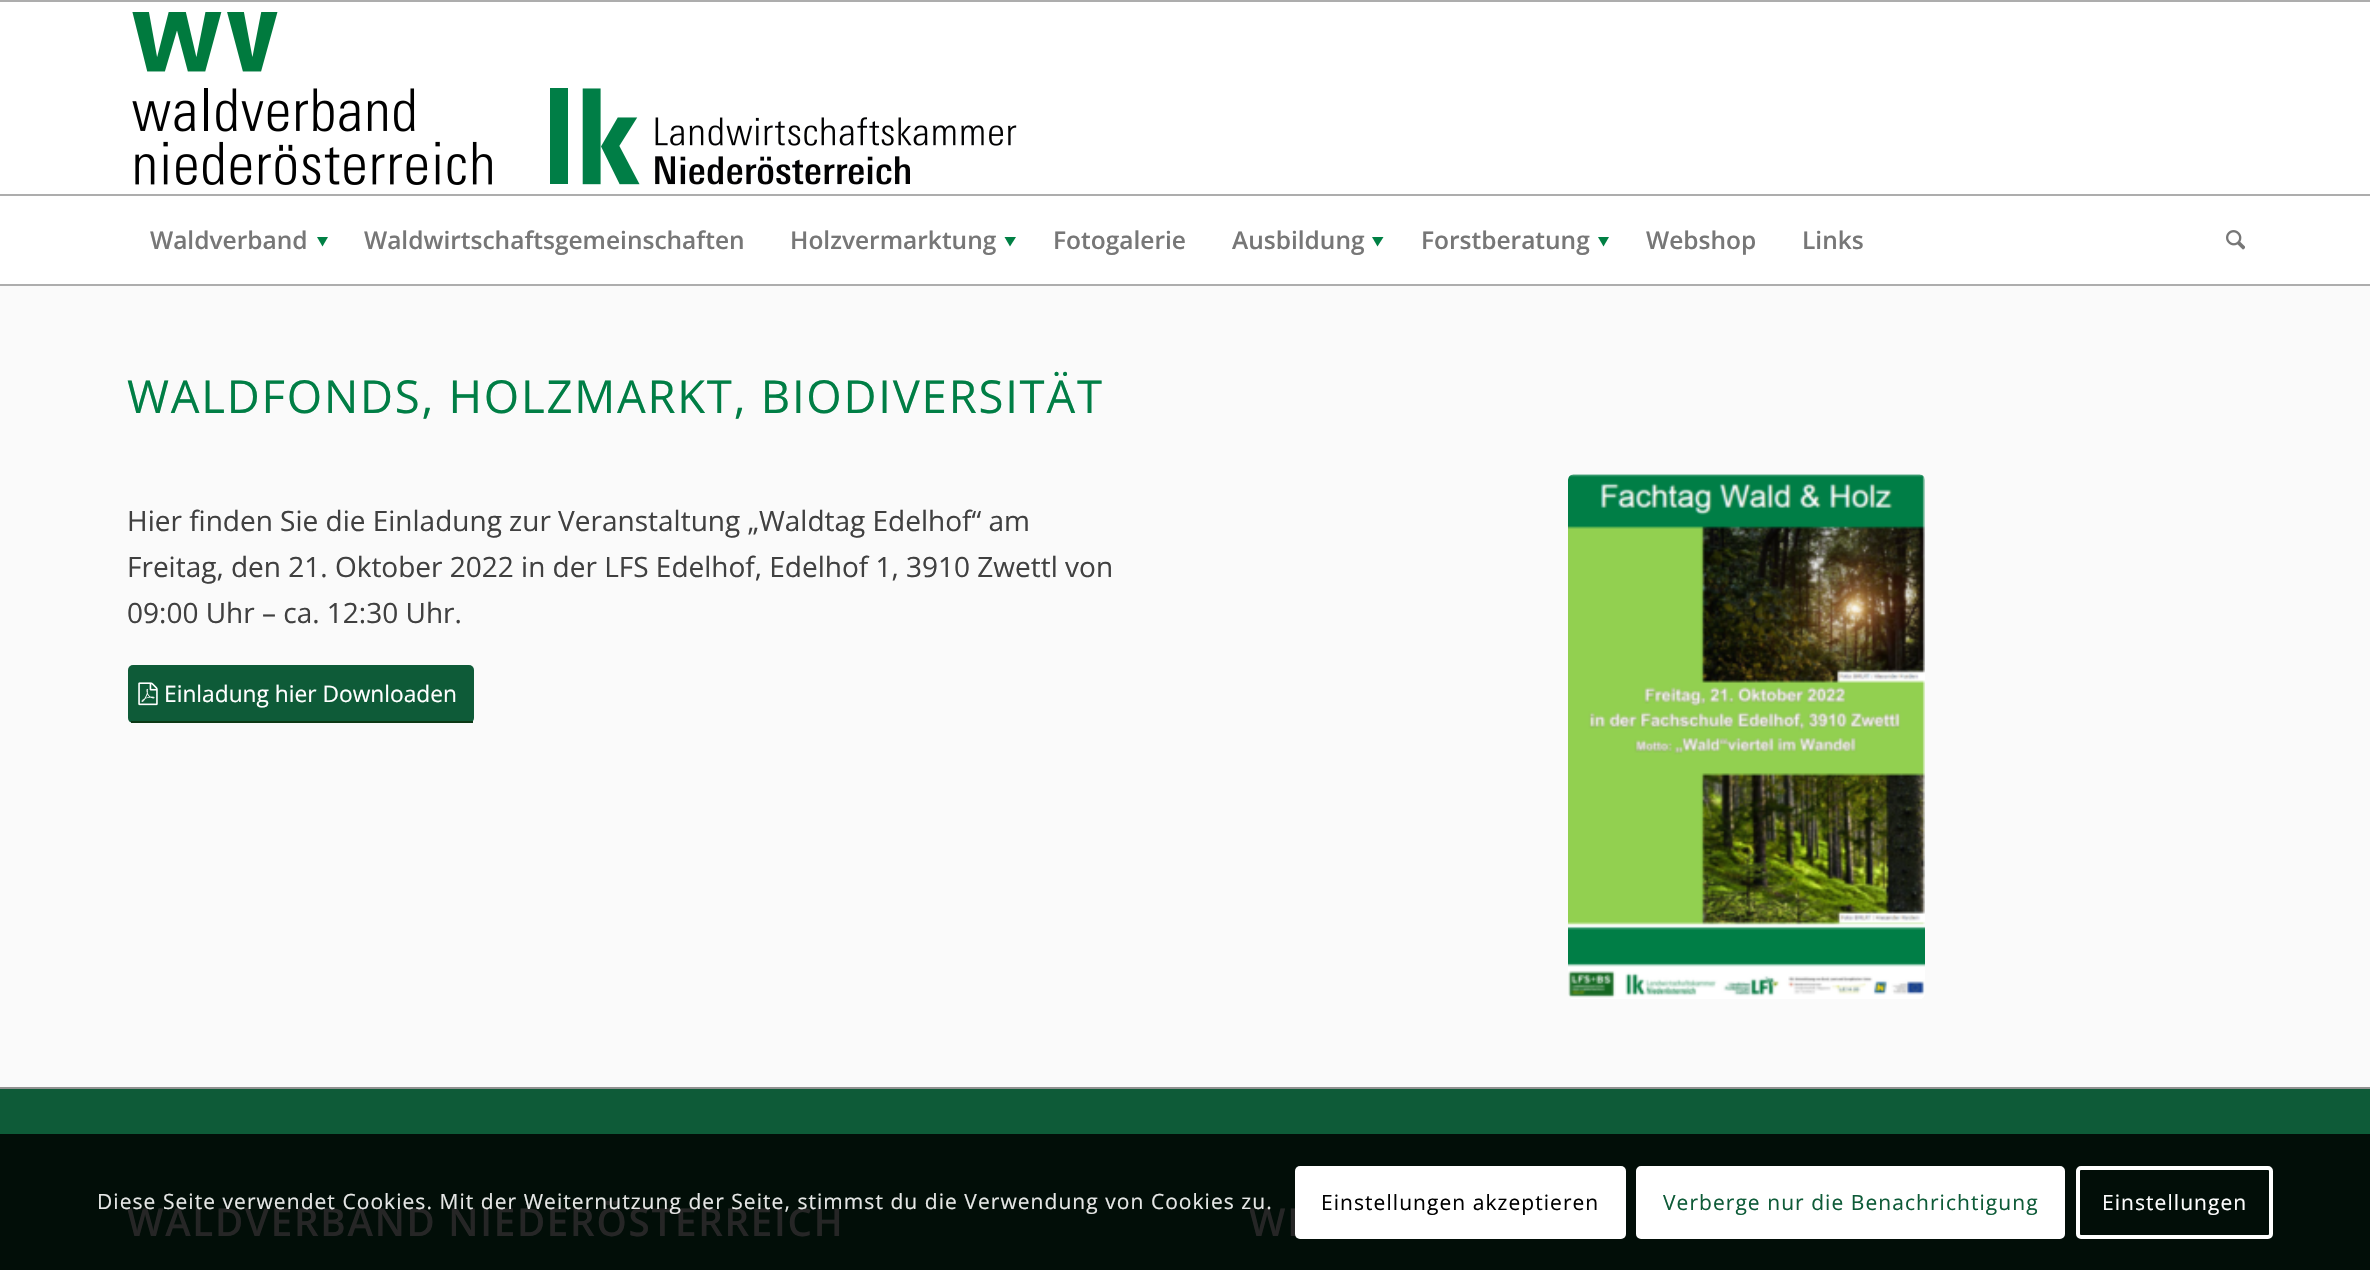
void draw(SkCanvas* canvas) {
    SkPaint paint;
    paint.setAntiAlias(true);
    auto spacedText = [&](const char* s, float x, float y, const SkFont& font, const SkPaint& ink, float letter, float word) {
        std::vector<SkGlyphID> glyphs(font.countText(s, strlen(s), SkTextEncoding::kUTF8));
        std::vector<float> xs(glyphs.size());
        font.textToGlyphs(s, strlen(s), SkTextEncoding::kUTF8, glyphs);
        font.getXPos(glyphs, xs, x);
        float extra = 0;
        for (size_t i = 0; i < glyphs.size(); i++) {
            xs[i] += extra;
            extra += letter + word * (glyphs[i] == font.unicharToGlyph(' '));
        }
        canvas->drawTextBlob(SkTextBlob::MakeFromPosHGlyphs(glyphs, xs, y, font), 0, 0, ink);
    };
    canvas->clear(0xFFFFFFFF);
    paint.setColor(0xFFADADAD);
    canvas->drawRect(SkRect::MakeXYWH(0, 0, 2370, 2), paint);
    canvas->drawRect(SkRect::MakeXYWH(0, 284, 2370, 2), paint);
    canvas->drawImageRect(SkImages::DeferredFromEncodedData(SkData::MakeFromFileName("img1.png")), SkRect::MakeXYWH(132, 12, 885, 173), SkSamplingOptions());
    canvas->drawRect(SkRect::MakeXYWH(0, 194, 2370, 2), paint);
    SkFont font1(fontMgr->matchFamilyStyle("Open Sans", SkFontStyle(600, SkFontStyle::kNormal_Width, SkFontStyle::kUpright_Slant)), 24.5f);
    font1.setSubpixel(true);
    paint.setColor(0xFF777777);
    canvas->drawString("Waldverband", 150, 249, font1, paint);
    paint.setColor(0xFF008044);
    canvas->drawPath(SkPathBuilder().moveTo(328, 237).lineTo(322.5f, 246.5f).lineTo(317, 237).close().detach(), paint);
    paint.setColor(0xFF777777);
    canvas->drawString("Waldwirtschaftsgemeinschaften", 364, 249, font1, paint);
    canvas->drawString("Holzvermarktung", 790, 249, font1, paint);
    paint.setColor(0xFF008044);
    canvas->drawPath(SkPathBuilder().moveTo(1016, 237).lineTo(1010, 246.5f).lineTo(1004.5f, 237).close().detach(), paint);
    paint.setColor(0xFF777777);
    canvas->drawString("Fotogalerie", 1053, 249, font1, paint);
    canvas->drawString("Ausbildung", 1232, 249, font1, paint);
    paint.setColor(0xFF008044);
    canvas->drawPath(SkPathBuilder().moveTo(1383.5f, 237).lineTo(1377.5f, 246.5f).lineTo(1372, 237).close().detach(), paint);
    paint.setColor(0xFF777777);
    canvas->drawString("Forstberatung", 1421, 249, font1, paint);
    paint.setColor(0xFF008044);
    canvas->drawPath(SkPathBuilder().moveTo(1609, 237).lineTo(1603.5f, 246.5f).lineTo(1598, 237).close().detach(), paint);
    paint.setColor(0xFF777777);
    canvas->drawString("Webshop", 1646, 249, font1, paint);
    canvas->drawString("Links", 1802, 249, font1, paint);
    canvas->drawImageRect(SkImages::DeferredFromEncodedData(SkData::MakeFromFileName("img2.png")), SkRect::MakeXYWH(2226, 230, 19, 20), SkSamplingOptions());
    paint.setColor(0xFFFAFAFA);
    canvas->drawRect(SkRect::MakeXYWH(0, 286, 2370, 801), paint);
    SkFont font2(fontMgr->matchFamilyStyle("Open Sans", SkFontStyle::Normal()), 45.5f);
    font2.setSubpixel(true);
    paint.setColor(0xFF007E45);
    spacedText("WALDFONDS, HOLZMARKT, BIODIVERSITÄT", 127, 413, font2, paint, 1.75f, 0);
    SkFont font3(fontMgr->matchFamilyStyle("Open Sans", SkFontStyle::Normal()), 28);
    font3.setSubpixel(true);
    paint.setColor(0xFF404040);
    canvas->drawString("Hier finden Sie die Einladung zur Veranstaltung „Waldtag Edelhof“ am", 127, 531, font3, paint);
    canvas->drawString("Freitag, den 21. Oktober 2022 in der LFS Edelhof, Edelhof 1, 3910 Zwettl von", 127, 577, font3, paint);
    canvas->drawString("09:00 Uhr – ca. 12:30 Uhr.", 127, 623, font3, paint);
    paint.setColor(0xFF0E5B38);
    canvas->drawRoundRect(SkRect::MakeXYWH(128, 665, 346, 58), 5, 5, paint);
    paint.setColor(0xFF0C3916);
    canvas->drawRect(SkRect::MakeXYWH(131, 721, 342, 2), paint);
    canvas->drawImageRect(SkImages::DeferredFromEncodedData(SkData::MakeFromFileName("img3.png")), SkRect::MakeXYWH(138, 682, 20, 24), SkSamplingOptions());
    SkFont font4(fontMgr->matchFamilyStyle("Open Sans", SkFontStyle::Normal()), 22.75f);
    font4.setSubpixel(true);
    paint.setColor(0xFFFFFFFF);
    canvas->drawString("Einladung hier Downloaden", 164, 702, font4, paint);
    canvas->drawImageRect(SkImages::DeferredFromEncodedData(SkData::MakeFromFileName("img4.png")), SkRect::MakeXYWH(1568, 474, 357, 525), SkSamplingOptions());
    paint.setColor(0xFF0E5B38);
    canvas->drawRect(SkRect::MakeXYWH(0, 1089, 2370, 45), paint);
    paint.setColor(0xFF020E08);
    canvas->drawRect(SkRect::MakeXYWH(0, 1134, 2370, 136), paint);
    paint.setColor(0xFF919191);
    canvas->drawRect(SkRect::MakeXYWH(0, 1087, 2370, 2), paint);
    canvas->save();
    canvas->clipRect(SkRect::MakeXYWH(128, 1167, 994, 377));
    SkFont font5(fontMgr->matchFamilyStyle("Open Sans", SkFontStyle(600, SkFontStyle::kNormal_Width, SkFontStyle::kUpright_Slant)), 38.5f);
    font5.setSubpixel(true);
    paint.setColor(0xFF262626);
    spacedText("WALDVERBAND NIEDERÖSTERREICH", 127, 1236, font5, paint, 1.75f, 0);
    canvas->restore();
    canvas->save();
    canvas->clipRect(SkRect::MakeXYWH(1250, 1167, 994, 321));
    spacedText("WI", 1249, 1236, font5, paint, 1.75f, 0);
    canvas->restore();
    SkFont font6(fontMgr->matchFamilyStyle("Open Sans", SkFontStyle::Normal()), 21);
    font6.setSubpixel(true);
    paint.setColor(0xFFE6E7E6);
    spacedText("Diese Seite verwendet Cookies. Mit der Weiternutzung der Seite, stimmst du die Verwendung von Cookies zu.", 97, 1209, font6, paint, 1.05f, 0);
    paint.setColor(0xFFFFFFFF);
    canvas->drawRoundRect(SkRect::MakeXYWH(1295, 1166, 331, 73), 5, 5, paint);
    paint.setColor(0xFF000000);
    spacedText("Einstellungen akzeptieren", 1321, 1210, font6, paint, 1.05f, 0);
    paint.setColor(0xFFFFFFFF);
    canvas->drawRoundRect(SkRect::MakeXYWH(1638, 1168, 425, 69), 3, 3, paint);
    paint.setStyle(SkPaint::kStroke_Style);
    paint.setStrokeWidth(4);
    canvas->drawRoundRect(SkRect::MakeXYWH(1638, 1168, 425, 69), 3, 3, paint);
    paint.setStyle(SkPaint::kFill_Style);
    paint.setColor(0xFF0E5B38);
    spacedText("Verberge nur die Benachrichtigung", 1663, 1210, font6, paint, 1.05f, 0);
    paint.setStyle(SkPaint::kStroke_Style);
    paint.setColor(0xFFFFFFFF);
    canvas->drawRoundRect(SkRect::MakeXYWH(2078, 1168, 193, 69), 3, 3, paint);
    paint.setStyle(SkPaint::kFill_Style);
    spacedText("Einstellungen", 2102, 1210, font6, paint, 1.05f, 0);
}
